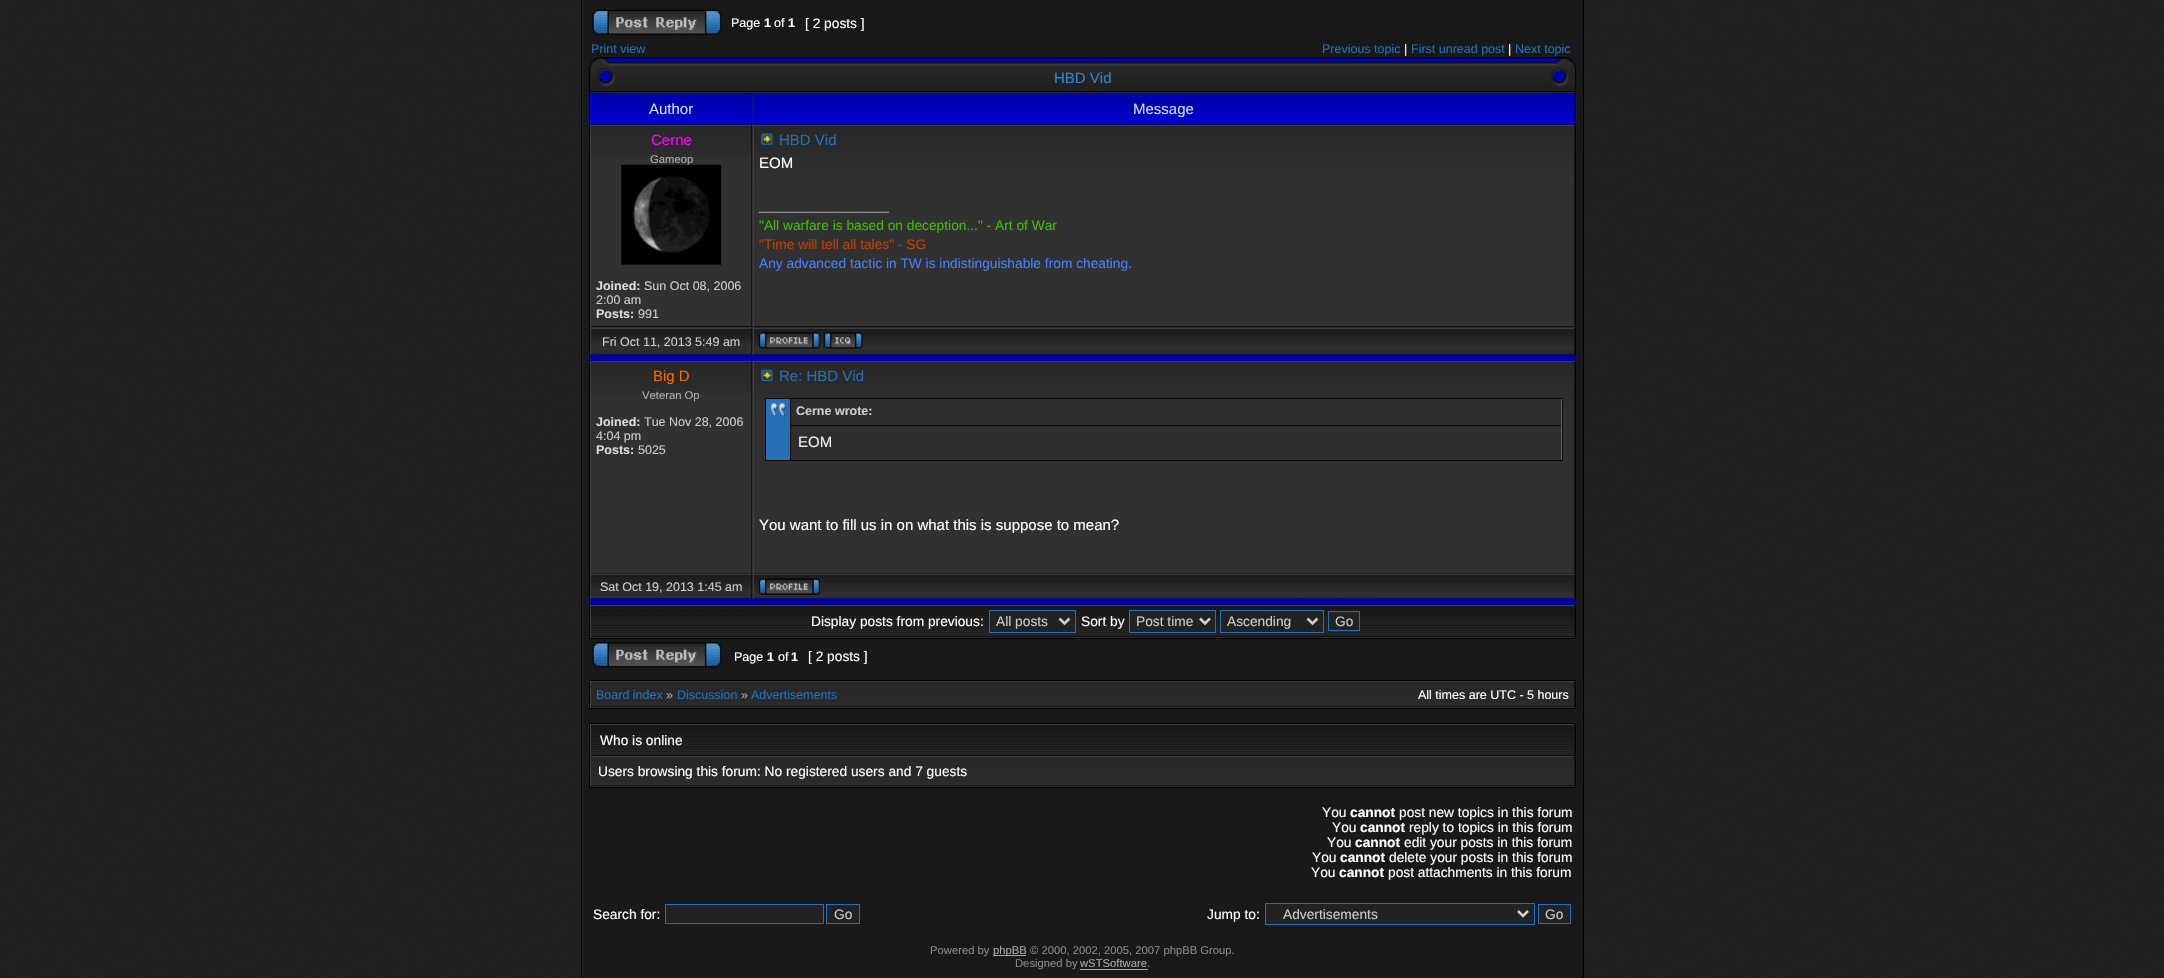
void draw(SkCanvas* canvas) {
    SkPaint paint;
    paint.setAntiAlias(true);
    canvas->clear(0xFFFFFFFF);
    canvas->drawImageRect(SkImages::DeferredFromEncodedData(SkData::MakeFromFileName("img1.png")), SkRect::MakeXYWH(0, 0, 2164, 978), SkSamplingOptions());
    paint.setColor(0xFF000000);
    canvas->drawRect(SkRect::MakeXYWH(1583, 0, 1, 978), paint);
    canvas->drawRect(SkRect::MakeXYWH(581, 0, 1, 978), paint);
    paint.setColor(0xFF191919);
    canvas->drawRect(SkRect::MakeXYWH(583, 0, 1000, 978), paint);
    canvas->drawImageRect(SkImages::DeferredFromEncodedData(SkData::MakeFromFileName("img2.png")), SkRect::MakeXYWH(592, 9, 130, 26), SkSamplingOptions());
    SkFont font1(fontMgr->matchFamilyStyle("Liberation Sans", SkFontStyle::Normal()), 12.5f);
    font1.setSubpixel(true);
    paint.setColor(0xFFFFFFFF);
    canvas->drawString("Page", 731, 27, font1, paint);
    SkFont font2(fontMgr->matchFamilyStyle("Liberation Sans", SkFontStyle::Bold()), 12.5f);
    font2.setSubpixel(true);
    canvas->drawString("1", 764, 27, font2, paint);
    canvas->drawString("of", 774, 27, font1, paint);
    canvas->drawString("1", 788, 27, font2, paint);
    SkFont font3(fontMgr->matchFamilyStyle("Liberation Sans", SkFontStyle::Normal()), 13.75f);
    font3.setSubpixel(true);
    canvas->drawString("[ 2 posts ]", 805, 28, font3, paint);
    paint.setColor(0xFF2370B6);
    canvas->drawString("Print view", 591, 53, font1, paint);
    canvas->drawString("Previous topic", 1322, 53, font1, paint);
    paint.setColor(0xFFFFFFFF);
    canvas->drawString("|", 1404, 53, font1, paint);
    paint.setColor(0xFF2370B6);
    canvas->drawString("First unread post", 1411, 53, font1, paint);
    paint.setColor(0xFFFFFFFF);
    canvas->drawString("|", 1508, 53, font1, paint);
    paint.setColor(0xFF2370B6);
    canvas->drawString("Next topic", 1515, 53, font1, paint);
    canvas->drawImageRect(SkImages::DeferredFromEncodedData(SkData::MakeFromFileName("img3.png")), SkRect::MakeXYWH(588, 57, 989, 34), SkSamplingOptions());
    canvas->drawImageRect(SkImages::DeferredFromEncodedData(SkData::MakeFromFileName("img4.png")), SkRect::MakeXYWH(588, 57, 32, 34), SkSamplingOptions());
    canvas->drawImageRect(SkImages::DeferredFromEncodedData(SkData::MakeFromFileName("img5.png")), SkRect::MakeXYWH(1545, 57, 32, 34), SkSamplingOptions());
    SkFont font4(fontMgr->matchFamilyStyle("Liberation Sans", SkFontStyle::Normal()), 15);
    font4.setSubpixel(true);
    paint.setColor(0xFF3285D0);
    canvas->drawString("HBD Vid", 1054, 83, font4, paint);
    canvas->drawImageRect(SkImages::DeferredFromEncodedData(SkData::MakeFromFileName("img6.png")), SkRect::MakeXYWH(588, 92, 989, 59), SkSamplingOptions());
    paint.setStyle(SkPaint::kStroke_Style);
    paint.setStrokeWidth(1);
    paint.setColor(0xFF000000);
    canvas->drawRect(SkRect::MakeXYWH(589.5f, 91.5f, 986, 547), paint);
    canvas->drawImageRect(SkImages::DeferredFromEncodedData(SkData::MakeFromFileName("img7.png")), SkRect::MakeXYWH(591, 94, 162, 30), SkSamplingOptions());
    paint.setStyle(SkPaint::kFill_Style);
    paint.setColor(0xFF0000FF);
    canvas->drawRect(SkRect::MakeXYWH(590, 93, 163, 1), paint);
    paint.setColor(0xFF000080);
    canvas->drawRect(SkRect::MakeXYWH(751, 93, 1, 32), paint);
    canvas->drawRect(SkRect::MakeXYWH(590, 124, 163, 1), paint);
    paint.setColor(0xFF0000FF);
    canvas->drawRect(SkRect::MakeXYWH(590, 93, 1, 32), paint);
    paint.setColor(0xFFCCDFF0);
    canvas->drawString("Author", 649, 114, font4, paint);
    canvas->drawImageRect(SkImages::DeferredFromEncodedData(SkData::MakeFromFileName("img8.png")), SkRect::MakeXYWH(752, 93, 822, 32), SkSamplingOptions());
    paint.setColor(0xFF0000FF);
    canvas->drawRect(SkRect::MakeXYWH(753, 93, 822, 1), paint);
    paint.setColor(0xFF000080);
    canvas->drawRect(SkRect::MakeXYWH(1574, 93, 1, 32), paint);
    canvas->drawRect(SkRect::MakeXYWH(753, 124, 822, 1), paint);
    paint.setColor(0xFF0000FF);
    canvas->drawRect(SkRect::MakeXYWH(753, 93, 1, 32), paint);
    paint.setColor(0xFFCCDFF0);
    canvas->drawString("Message", 1133, 114, font4, paint);
    paint.setColor(0xFF313131);
    canvas->drawRect(SkRect::MakeXYWH(591, 126, 162, 202), paint);
    canvas->drawImageRect(SkImages::DeferredFromEncodedData(SkData::MakeFromFileName("img9.png")), SkRect::MakeXYWH(590, 124, 163, 33), SkSamplingOptions());
    paint.setColor(0xFF3C3C3C);
    canvas->drawRect(SkRect::MakeXYWH(590, 125, 163, 1), paint);
    paint.setColor(0xFF121212);
    canvas->drawRect(SkRect::MakeXYWH(751, 125, 1, 203), paint);
    paint.setColor(0xFF131313);
    canvas->drawRect(SkRect::MakeXYWH(590, 326, 163, 1), paint);
    paint.setColor(0xFF404040);
    canvas->drawRect(SkRect::MakeXYWH(590, 125, 1, 203), paint);
    paint.setColor(0xFFFF00FF);
    canvas->drawString("Cerne", 651, 145, font4, paint);
    SkFont font5(fontMgr->matchFamilyStyle("Liberation Sans", SkFontStyle::Normal()), 11.25f);
    font5.setSubpixel(true);
    paint.setColor(0xFFB0B0B0);
    canvas->drawString("Gameop", 650, 163, font5, paint);
    canvas->drawImageRect(SkImages::DeferredFromEncodedData(SkData::MakeFromFileName("img10.png")), SkRect::MakeXYWH(621, 164, 101, 101), SkSamplingOptions());
    paint.setColor(0xFFDDDDDD);
    canvas->drawString("Joined:", 596, 290, font2, paint);
    paint.setColor(0xFFCCCCCC);
    canvas->drawString("Sun Oct 08, 2006", 644, 290, font1, paint);
    canvas->drawString("2:00 am", 596, 304, font1, paint);
    paint.setColor(0xFFDDDDDD);
    canvas->drawString("Posts:", 596, 318, font2, paint);
    paint.setColor(0xFFCCCCCC);
    canvas->drawString("991", 638, 318, font1, paint);
    canvas->drawImageRect(SkImages::DeferredFromEncodedData(SkData::MakeFromFileName("img11.png")), SkRect::MakeXYWH(752, 124, 823, 203), SkSamplingOptions());
    paint.setColor(0xFF3C3C3C);
    canvas->drawRect(SkRect::MakeXYWH(753, 125, 822, 1), paint);
    paint.setColor(0xFF121212);
    canvas->drawRect(SkRect::MakeXYWH(1574, 125, 1, 203), paint);
    paint.setColor(0xFF131313);
    canvas->drawRect(SkRect::MakeXYWH(753, 326, 822, 1), paint);
    paint.setColor(0xFF404040);
    canvas->drawRect(SkRect::MakeXYWH(753, 125, 1, 203), paint);
    canvas->drawImageRect(SkImages::DeferredFromEncodedData(SkData::MakeFromFileName("img12.png")), SkRect::MakeXYWH(761, 133, 12, 12), SkSamplingOptions());
    paint.setColor(0xFF2370B6);
    canvas->drawString("HBD Vid", 779, 145, font4, paint);
    paint.setColor(0xFFFFFFFF);
    canvas->drawString("EOM", 759, 168, font4, paint);
    paint.setColor(0xFFAAAAAA);
    canvas->drawString("_________________", 759, 210, font3, paint);
    paint.setColor(0xFF40BF00);
    canvas->drawString("\"All warfare is based on deception...\" - Art of War", 759, 230, font3, paint);
    paint.setColor(0xFFBF4000);
    canvas->drawString("\"Time will tell all tales\" - SG", 759, 249, font3, paint);
    paint.setColor(0xFF4080FF);
    canvas->drawString("Any advanced tactic in TW is indistinguishable from cheating.", 759, 268, font3, paint);
    paint.setColor(0xFF2D2D2D);
    canvas->drawRect(SkRect::MakeXYWH(591, 329, 162, 25), paint);
    canvas->drawImageRect(SkImages::DeferredFromEncodedData(SkData::MakeFromFileName("img13.png")), SkRect::MakeXYWH(590, 327, 163, 16), SkSamplingOptions());
    paint.setColor(0xFF3C3C3C);
    canvas->drawRect(SkRect::MakeXYWH(590, 328, 163, 1), paint);
    paint.setColor(0xFF121212);
    canvas->drawRect(SkRect::MakeXYWH(751, 328, 1, 27), paint);
    paint.setColor(0xFF131313);
    canvas->drawRect(SkRect::MakeXYWH(590, 354, 163, 1), paint);
    paint.setColor(0xFF404040);
    canvas->drawRect(SkRect::MakeXYWH(590, 328, 1, 27), paint);
    paint.setColor(0xFFCCCCCC);
    canvas->drawString("Fri Oct 11, 2013 5:49 am", 602, 346, font1, paint);
    canvas->drawImageRect(SkImages::DeferredFromEncodedData(SkData::MakeFromFileName("img14.png")), SkRect::MakeXYWH(752, 327, 823, 28), SkSamplingOptions());
    paint.setColor(0xFF3C3C3C);
    canvas->drawRect(SkRect::MakeXYWH(753, 328, 822, 1), paint);
    paint.setColor(0xFF121212);
    canvas->drawRect(SkRect::MakeXYWH(1574, 328, 1, 27), paint);
    paint.setColor(0xFF131313);
    canvas->drawRect(SkRect::MakeXYWH(753, 354, 822, 1), paint);
    paint.setColor(0xFF404040);
    canvas->drawRect(SkRect::MakeXYWH(753, 328, 1, 27), paint);
    canvas->drawImageRect(SkImages::DeferredFromEncodedData(SkData::MakeFromFileName("img15.png")), SkRect::MakeXYWH(758, 332, 62, 17), SkSamplingOptions());
    canvas->drawImageRect(SkImages::DeferredFromEncodedData(SkData::MakeFromFileName("img16.png")), SkRect::MakeXYWH(823, 332, 40, 17), SkSamplingOptions());
    canvas->drawImageRect(SkImages::DeferredFromEncodedData(SkData::MakeFromFileName("img17.png")), SkRect::MakeXYWH(590, 354, 985, 7), SkSamplingOptions());
    paint.setColor(0xFF313131);
    canvas->drawRect(SkRect::MakeXYWH(591, 362, 162, 211), paint);
    canvas->drawImageRect(SkImages::DeferredFromEncodedData(SkData::MakeFromFileName("img18.png")), SkRect::MakeXYWH(591, 362, 162, 31), SkSamplingOptions());
    paint.setColor(0xFF3C3C3C);
    canvas->drawRect(SkRect::MakeXYWH(590, 361, 163, 1), paint);
    paint.setColor(0xFF121212);
    canvas->drawRect(SkRect::MakeXYWH(751, 361, 1, 213), paint);
    paint.setColor(0xFF131313);
    canvas->drawRect(SkRect::MakeXYWH(590, 573, 163, 1), paint);
    paint.setColor(0xFF404040);
    canvas->drawRect(SkRect::MakeXYWH(590, 361, 1, 213), paint);
    paint.setColor(0xFFFF6600);
    canvas->drawString("Big D", 653, 381, font4, paint);
    paint.setColor(0xFFB0B0B0);
    canvas->drawString("Veteran Op", 642, 399, font5, paint);
    paint.setColor(0xFFDDDDDD);
    canvas->drawString("Joined:", 596, 426, font2, paint);
    paint.setColor(0xFFCCCCCC);
    canvas->drawString("Tue Nov 28, 2006", 644, 426, font1, paint);
    canvas->drawString("4:04 pm", 596, 440, font1, paint);
    paint.setColor(0xFFDDDDDD);
    canvas->drawString("Posts:", 596, 454, font2, paint);
    paint.setColor(0xFFCCCCCC);
    canvas->drawString("5025", 638, 454, font1, paint);
    canvas->drawImageRect(SkImages::DeferredFromEncodedData(SkData::MakeFromFileName("img19.png")), SkRect::MakeXYWH(752, 361, 822, 213), SkSamplingOptions());
    paint.setColor(0xFF3C3C3C);
    canvas->drawRect(SkRect::MakeXYWH(753, 361, 822, 1), paint);
    paint.setColor(0xFF121212);
    canvas->drawRect(SkRect::MakeXYWH(1574, 361, 1, 213), paint);
    paint.setColor(0xFF131313);
    canvas->drawRect(SkRect::MakeXYWH(753, 573, 822, 1), paint);
    paint.setColor(0xFF404040);
    canvas->drawRect(SkRect::MakeXYWH(753, 361, 1, 213), paint);
    canvas->drawImageRect(SkImages::DeferredFromEncodedData(SkData::MakeFromFileName("img20.png")), SkRect::MakeXYWH(761, 369, 12, 12), SkSamplingOptions());
    paint.setColor(0xFF2370B6);
    canvas->drawString("Re: HBD Vid", 779, 381, font4, paint);
    paint.setColor(0xFF2671B6);
    canvas->drawRect(SkRect::MakeXYWH(766, 399, 796, 61), paint);
    canvas->drawImageRect(SkImages::DeferredFromEncodedData(SkData::MakeFromFileName("img21.png")), SkRect::MakeXYWH(771, 403, 16, 15), SkSamplingOptions());
    paint.setStyle(SkPaint::kStroke_Style);
    paint.setColor(0xFF090909);
    canvas->drawRect(SkRect::MakeXYWH(765.5f, 398.5f, 797, 62), paint);
    paint.setStyle(SkPaint::kFill_Style);
    paint.setColor(0xFF2E2E2E);
    canvas->drawRect(SkRect::MakeXYWH(791, 399, 770, 26), paint);
    paint.setColor(0xFF090909);
    canvas->drawRect(SkRect::MakeXYWH(790, 425, 771, 1), paint);
    canvas->drawRect(SkRect::MakeXYWH(790, 399, 1, 61), paint);
    paint.setColor(0xFFCCCCCC);
    canvas->drawString("Cerne wrote:", 796, 415, font2, paint);
    paint.setColor(0xFF2E2E2E);
    canvas->drawRect(SkRect::MakeXYWH(791, 426, 770, 34), paint);
    paint.setColor(0xFFEEEEEE);
    canvas->drawString("EOM", 798, 447, font4, paint);
    paint.setColor(0xFFFFFFFF);
    canvas->drawString("You want to fill us in on what this is suppose to mean?", 759, 530, font4, paint);
    paint.setColor(0xFF2D2D2D);
    canvas->drawRect(SkRect::MakeXYWH(591, 575, 162, 23), paint);
    canvas->drawImageRect(SkImages::DeferredFromEncodedData(SkData::MakeFromFileName("img22.png")), SkRect::MakeXYWH(590, 573, 163, 16), SkSamplingOptions());
    paint.setColor(0xFF3C3C3C);
    canvas->drawRect(SkRect::MakeXYWH(590, 574, 163, 1), paint);
    paint.setColor(0xFF121212);
    canvas->drawRect(SkRect::MakeXYWH(751, 574, 1, 25), paint);
    paint.setColor(0xFF131313);
    canvas->drawRect(SkRect::MakeXYWH(590, 598, 163, 1), paint);
    paint.setColor(0xFF404040);
    canvas->drawRect(SkRect::MakeXYWH(590, 574, 1, 25), paint);
    paint.setColor(0xFFCCCCCC);
    canvas->drawString("Sat Oct 19, 2013 1:45 am", 600, 591, font1, paint);
    canvas->drawImageRect(SkImages::DeferredFromEncodedData(SkData::MakeFromFileName("img23.png")), SkRect::MakeXYWH(752, 573, 823, 26), SkSamplingOptions());
    paint.setColor(0xFF3C3C3C);
    canvas->drawRect(SkRect::MakeXYWH(753, 574, 822, 1), paint);
    paint.setColor(0xFF121212);
    canvas->drawRect(SkRect::MakeXYWH(1574, 574, 1, 25), paint);
    paint.setColor(0xFF131313);
    canvas->drawRect(SkRect::MakeXYWH(753, 598, 822, 1), paint);
    paint.setColor(0xFF404040);
    canvas->drawRect(SkRect::MakeXYWH(753, 574, 1, 25), paint);
    canvas->drawImageRect(SkImages::DeferredFromEncodedData(SkData::MakeFromFileName("img24.png")), SkRect::MakeXYWH(758, 578, 62, 17), SkSamplingOptions());
    canvas->drawImageRect(SkImages::DeferredFromEncodedData(SkData::MakeFromFileName("img25.png")), SkRect::MakeXYWH(590, 598, 985, 7), SkSamplingOptions());
    paint.setColor(0xFF2C2C2C);
    canvas->drawRect(SkRect::MakeXYWH(591, 637, 983, 1), paint);
    canvas->drawImageRect(SkImages::DeferredFromEncodedData(SkData::MakeFromFileName("img26.png")), SkRect::MakeXYWH(591, 606, 983, 30), SkSamplingOptions());
    paint.setColor(0xFF3C3C3C);
    canvas->drawRect(SkRect::MakeXYWH(590, 605, 985, 1), paint);
    paint.setColor(0xFF121212);
    canvas->drawRect(SkRect::MakeXYWH(1574, 605, 1, 33), paint);
    paint.setColor(0xFF131313);
    canvas->drawRect(SkRect::MakeXYWH(590, 636, 985, 1), paint);
    paint.setColor(0xFF404040);
    canvas->drawRect(SkRect::MakeXYWH(590, 605, 1, 33), paint);
    paint.setColor(0xFFFFFFFF);
    canvas->drawString("Display posts from previous:", 811, 626, font3, paint);
    paint.setColor(0xFF222222);
    canvas->drawRect(SkRect::MakeXYWH(989.5f, 610.5f, 86, 22), paint);
    paint.setStyle(SkPaint::kStroke_Style);
    paint.setColor(0xFF2370B6);
    canvas->drawRect(SkRect::MakeXYWH(989.5f, 610.5f, 86, 22), paint);
    paint.setStrokeWidth(2.5f);
    paint.setColor(0xFFD0D0D0);
    canvas->drawPath(SkPathBuilder().moveTo(1059.5f, 618.5f).lineTo(1064.5f, 623.5f).lineTo(1069.5f, 618.5f).detach(), paint);
    paint.setStyle(SkPaint::kFill_Style);
    paint.setColor(0xFFCCCCCC);
    canvas->drawString("All posts", 996, 626, font3, paint);
    paint.setColor(0xFFFFFFFF);
    canvas->drawString("Sort by", 1081, 626, font3, paint);
    paint.setColor(0xFF222222);
    canvas->drawRect(SkRect::MakeXYWH(1129.5f, 610.5f, 86, 22), paint);
    paint.setStyle(SkPaint::kStroke_Style);
    paint.setStrokeWidth(1);
    paint.setColor(0xFF2370B6);
    canvas->drawRect(SkRect::MakeXYWH(1129.5f, 610.5f, 86, 22), paint);
    paint.setStrokeWidth(2.5f);
    paint.setColor(0xFFD0D0D0);
    canvas->drawPath(SkPathBuilder().moveTo(1200, 618.5f).lineTo(1205, 623.5f).lineTo(1210, 618.5f).detach(), paint);
    paint.setStyle(SkPaint::kFill_Style);
    paint.setColor(0xFFCCCCCC);
    canvas->drawString("Post time", 1136, 626, font3, paint);
    paint.setColor(0xFF222222);
    canvas->drawRect(SkRect::MakeXYWH(1220.5f, 610.5f, 103, 22), paint);
    paint.setStyle(SkPaint::kStroke_Style);
    paint.setStrokeWidth(1);
    paint.setColor(0xFF2370B6);
    canvas->drawRect(SkRect::MakeXYWH(1220.5f, 610.5f, 103, 22), paint);
    paint.setStrokeWidth(2.5f);
    paint.setColor(0xFFD0D0D0);
    canvas->drawPath(SkPathBuilder().moveTo(1307.5f, 618.5f).lineTo(1312.5f, 623.5f).lineTo(1317.5f, 618.5f).detach(), paint);
    paint.setStyle(SkPaint::kFill_Style);
    paint.setColor(0xFFCCCCCC);
    canvas->drawString("Ascending", 1227, 626, font3, paint);
    paint.setColor(0xFF222222);
    canvas->drawRect(SkRect::MakeXYWH(1329, 612, 30, 16), paint);
    paint.setStyle(SkPaint::kStroke_Style);
    paint.setStrokeWidth(1);
    paint.setColor(0xFF2370B6);
    canvas->drawRect(SkRect::MakeXYWH(1328.5f, 611.5f, 31, 19), paint);
    paint.setStyle(SkPaint::kFill_Style);
    paint.setColor(0xFFCCCCCC);
    canvas->drawString("Go", 1335, 626, font3, paint);
    canvas->drawImageRect(SkImages::DeferredFromEncodedData(SkData::MakeFromFileName("img27.png")), SkRect::MakeXYWH(592, 642, 130, 26), SkSamplingOptions());
    paint.setColor(0xFFFFFFFF);
    canvas->drawString("Page", 734, 661, font1, paint);
    canvas->drawString("1", 767, 661, font2, paint);
    canvas->drawString("of", 778, 661, font1, paint);
    canvas->drawString("1", 791, 661, font2, paint);
    canvas->drawString("[ 2 posts ]", 808, 661, font3, paint);
    canvas->drawImageRect(SkImages::DeferredFromEncodedData(SkData::MakeFromFileName("img28.png")), SkRect::MakeXYWH(588, 681, 989, 27), SkSamplingOptions());
    paint.setStyle(SkPaint::kStroke_Style);
    paint.setColor(0xFF000000);
    canvas->drawRect(SkRect::MakeXYWH(589.5f, 680.5f, 986, 28), paint);
    paint.setStyle(SkPaint::kFill_Style);
    paint.setColor(0xFF313131);
    canvas->drawRect(SkRect::MakeXYWH(591, 682, 983, 26), paint);
    canvas->drawImageRect(SkImages::DeferredFromEncodedData(SkData::MakeFromFileName("img29.png")), SkRect::MakeXYWH(591, 682, 983, 24), SkSamplingOptions());
    paint.setColor(0xFF3C3C3C);
    canvas->drawRect(SkRect::MakeXYWH(590, 681, 985, 1), paint);
    paint.setColor(0xFF121212);
    canvas->drawRect(SkRect::MakeXYWH(1574, 681, 1, 27), paint);
    paint.setColor(0xFF131313);
    canvas->drawRect(SkRect::MakeXYWH(590, 706, 985, 1), paint);
    paint.setColor(0xFF404040);
    canvas->drawRect(SkRect::MakeXYWH(590, 681, 1, 27), paint);
    paint.setColor(0xFF2370B6);
    canvas->drawString("Board index", 596, 699, font1, paint);
    paint.setColor(0xFFAAAAAA);
    canvas->drawString("»", 666, 699, font1, paint);
    paint.setColor(0xFF2370B6);
    canvas->drawString("Discussion", 677, 699, font1, paint);
    paint.setColor(0xFFAAAAAA);
    canvas->drawString("»", 741, 699, font1, paint);
    paint.setColor(0xFF2370B6);
    canvas->drawString("Advertisements", 751, 699, font1, paint);
    paint.setColor(0xFFFFFFFF);
    canvas->drawString("All times are UTC - 5 hours", 1418, 699, font1, paint);
    paint.setColor(0xFF313131);
    canvas->drawRect(SkRect::MakeXYWH(590, 786, 985, 1), paint);
    canvas->drawImageRect(SkImages::DeferredFromEncodedData(SkData::MakeFromFileName("img30.png")), SkRect::MakeXYWH(588, 723, 989, 59), SkSamplingOptions());
    paint.setStyle(SkPaint::kStroke_Style);
    paint.setColor(0xFF000000);
    canvas->drawRect(SkRect::MakeXYWH(589.5f, 723.5f, 986, 64), paint);
    canvas->drawImageRect(SkImages::DeferredFromEncodedData(SkData::MakeFromFileName("img31.png")), SkRect::MakeXYWH(591, 725, 983, 30), SkSamplingOptions());
    paint.setStyle(SkPaint::kFill_Style);
    paint.setColor(0xFF3C3C3C);
    canvas->drawRect(SkRect::MakeXYWH(590, 724, 985, 1), paint);
    paint.setColor(0xFF121212);
    canvas->drawRect(SkRect::MakeXYWH(1574, 724, 1, 32), paint);
    paint.setColor(0xFF131313);
    canvas->drawRect(SkRect::MakeXYWH(590, 755, 985, 1), paint);
    paint.setColor(0xFF404040);
    canvas->drawRect(SkRect::MakeXYWH(590, 724, 1, 32), paint);
    paint.setColor(0xFFFFFFFF);
    canvas->drawString("Who is online", 600, 745, font3, paint);
    canvas->drawImageRect(SkImages::DeferredFromEncodedData(SkData::MakeFromFileName("img32.png")), SkRect::MakeXYWH(591, 757, 983, 28), SkSamplingOptions());
    paint.setColor(0xFF3C3C3C);
    canvas->drawRect(SkRect::MakeXYWH(590, 756, 985, 1), paint);
    paint.setColor(0xFF121212);
    canvas->drawRect(SkRect::MakeXYWH(1574, 756, 1, 30), paint);
    paint.setColor(0xFF131313);
    canvas->drawRect(SkRect::MakeXYWH(590, 785, 985, 1), paint);
    paint.setColor(0xFF404040);
    canvas->drawRect(SkRect::MakeXYWH(590, 756, 1, 30), paint);
    paint.setColor(0xFFFFFFFF);
    canvas->drawString("Users browsing this forum: No registered users and 7 guests", 598, 776, font3, paint);
    canvas->drawString("You", 1322, 817, font3, paint);
    SkFont font6(fontMgr->matchFamilyStyle("Liberation Sans", SkFontStyle::Bold()), 13.75f);
    font6.setSubpixel(true);
    canvas->drawString("cannot", 1350, 817, font6, paint);
    canvas->drawString("post new topics in this forum", 1399, 817, font3, paint);
    canvas->drawString("You", 1332, 832, font3, paint);
    canvas->drawString("cannot", 1360, 832, font6, paint);
    canvas->drawString("reply to topics in this forum", 1409, 832, font3, paint);
    canvas->drawString("You", 1327, 847, font3, paint);
    canvas->drawString("cannot", 1355, 847, font6, paint);
    canvas->drawString("edit your posts in this forum", 1404, 847, font3, paint);
    canvas->drawString("You", 1312, 862, font3, paint);
    canvas->drawString("cannot", 1340, 862, font6, paint);
    canvas->drawString("delete your posts in this forum", 1389, 862, font3, paint);
    canvas->drawString("You", 1311, 877, font3, paint);
    canvas->drawString("cannot", 1339, 877, font6, paint);
    canvas->drawString("post attachments in this forum", 1388, 877, font3, paint);
    canvas->drawString("Search for:", 593, 919, font3, paint);
    paint.setColor(0xFF222222);
    canvas->drawRect(SkRect::MakeXYWH(665.5f, 904.5f, 158, 19), paint);
    paint.setStyle(SkPaint::kStroke_Style);
    paint.setColor(0xFF2370B6);
    canvas->drawRect(SkRect::MakeXYWH(665.5f, 904.5f, 158, 19), paint);
    paint.setStyle(SkPaint::kFill_Style);
    paint.setColor(0xFF222222);
    canvas->drawRect(SkRect::MakeXYWH(826.5f, 904.5f, 33, 19), paint);
    paint.setStyle(SkPaint::kStroke_Style);
    paint.setColor(0xFF2370B6);
    canvas->drawRect(SkRect::MakeXYWH(826.5f, 904.5f, 33, 19), paint);
    paint.setStyle(SkPaint::kFill_Style);
    paint.setColor(0xFFCCCCCC);
    canvas->drawString("Go", 834, 919, font3, paint);
    paint.setColor(0xFFFFFFFF);
    canvas->drawString("Jump to:", 1207, 919, font3, paint);
    paint.setColor(0xFF222222);
    canvas->drawRect(SkRect::MakeXYWH(1265.5f, 903.5f, 269, 21), paint);
    paint.setStyle(SkPaint::kStroke_Style);
    paint.setColor(0xFF2370B6);
    canvas->drawRect(SkRect::MakeXYWH(1265.5f, 903.5f, 269, 21), paint);
    paint.setStrokeWidth(2.5f);
    paint.setColor(0xFFD0D0D0);
    canvas->drawPath(SkPathBuilder().moveTo(1518, 911).lineTo(1523, 916).lineTo(1528, 911).detach(), paint);
    paint.setStyle(SkPaint::kFill_Style);
    paint.setColor(0xFFCCCCCC);
    canvas->drawString("Advertisements", 1283, 919, font3, paint);
    paint.setColor(0xFF222222);
    canvas->drawRect(SkRect::MakeXYWH(1538.5f, 904.5f, 32, 19), paint);
    paint.setStyle(SkPaint::kStroke_Style);
    paint.setStrokeWidth(1);
    paint.setColor(0xFF2370B6);
    canvas->drawRect(SkRect::MakeXYWH(1538.5f, 904.5f, 32, 19), paint);
    paint.setStyle(SkPaint::kFill_Style);
    paint.setColor(0xFFCCCCCC);
    canvas->drawString("Go", 1545, 919, font3, paint);
    paint.setColor(0xFF888888);
    canvas->drawString("Powered by", 930, 954, font5, paint);
    paint.setColor(0xFFAAAAAA);
    canvas->drawRect(SkRect::MakeXYWH(993, 955, 33, 1), paint);
    canvas->drawString("phpBB", 993, 954, font5, paint);
    paint.setColor(0xFF888888);
    canvas->drawString("© 2000, 2002, 2005, 2007 phpBB Group.", 1030, 954, font5, paint);
    canvas->drawString("Designed by", 1015, 967, font5, paint);
    paint.setColor(0xFFAAAAAA);
    canvas->drawString("wSTSoftware", 1080, 967, font5, paint);
    paint.setColor(0xFF888888);
    canvas->drawString(".", 1147, 967, font5, paint);
    paint.setColor(0xFFAAAAAA);
    canvas->drawRect(SkRect::MakeXYWH(1080, 969, 68, 1), paint);
}
